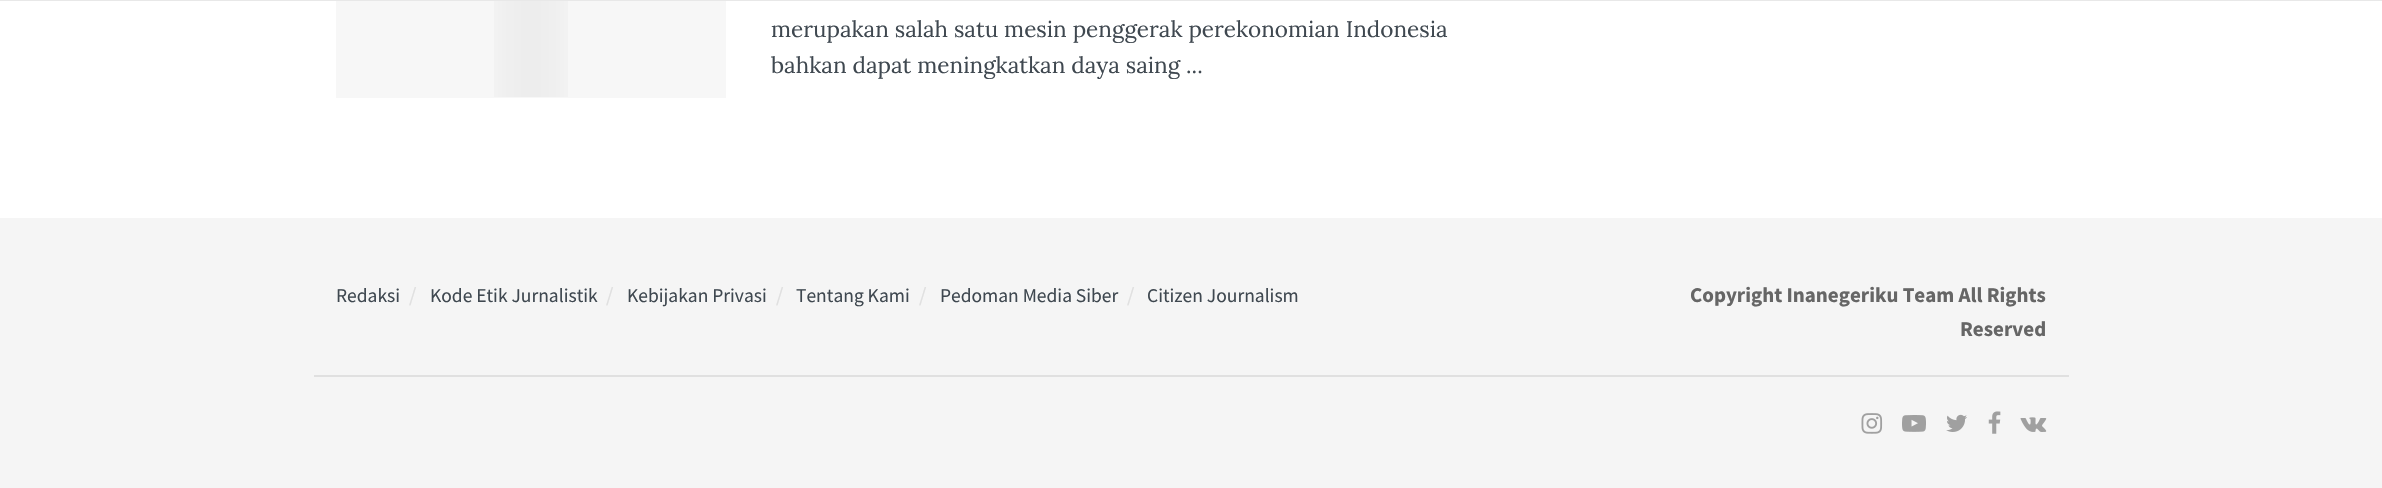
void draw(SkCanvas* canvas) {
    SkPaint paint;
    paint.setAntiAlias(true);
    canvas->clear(0xFFFFFFFF);
    paint.setColor(0xFFE8E8E8);
    canvas->drawRect(SkRect::MakeXYWH(0, 0, 2382, 1), paint);
    paint.setColor(0xFFF7F7F7);
    canvas->drawRect(SkRect::MakeXYWH(336, 1, 390, 97), paint);
    canvas->drawImageRect(SkImages::DeferredFromEncodedData(SkData::MakeFromFileName("img1.png")), SkRect::MakeXYWH(494, 1, 74, 96), SkSamplingOptions());
    SkFont font1(fontMgr->matchFamilyStyle("Lora", SkFontStyle::Normal()), 22.5f);
    font1.setSubpixel(true);
    paint.setColor(0xFF3F4850);
    canvas->drawString("merupakan salah satu mesin penggerak perekonomian Indonesia", 771, 37, font1, paint);
    canvas->drawString("bahkan dapat meningkatkan daya saing ...", 771, 73, font1, paint);
    paint.setColor(0xFFF5F5F5);
    canvas->drawRect(SkRect::MakeXYWH(0, 218, 2382, 270), paint);
    SkFont font2(fontMgr->matchFamilyStyle("Source Sans Pro", SkFontStyle::Normal()), 19.5f);
    font2.setSubpixel(true);
    paint.setColor(0xFF3F4850);
    canvas->drawString("Redaksi", 336, 302, font2, paint);
    SkFont font3(fontMgr->matchFamilyStyle("Source Sans Pro", SkFontStyle::Normal()), 21);
    font3.setSubpixel(true);
    paint.setColor(0xFFE0E0E0);
    canvas->drawString("/", 409, 302, font3, paint);
    paint.setColor(0xFF3F4850);
    canvas->drawString("Kode Etik Jurnalistik", 430, 302, font2, paint);
    paint.setColor(0xFFE0E0E0);
    canvas->drawString("/", 606, 302, font3, paint);
    paint.setColor(0xFF3F4850);
    canvas->drawString("Kebijakan Privasi", 627, 302, font2, paint);
    paint.setColor(0xFFE0E0E0);
    canvas->drawString("/", 776, 302, font3, paint);
    paint.setColor(0xFF3F4850);
    canvas->drawString("Tentang Kami", 796, 302, font2, paint);
    paint.setColor(0xFFE0E0E0);
    canvas->drawString("/", 919, 302, font3, paint);
    paint.setColor(0xFF3F4850);
    canvas->drawString("Pedoman Media Siber", 940, 302, font2, paint);
    paint.setColor(0xFFE0E0E0);
    canvas->drawString("/", 1127, 302, font3, paint);
    paint.setColor(0xFF3F4850);
    canvas->drawString("Citizen Journalism", 1147, 302, font2, paint);
    SkFont font4(fontMgr->matchFamilyStyle("Source Sans Pro", SkFontStyle::Bold()), 21);
    font4.setSubpixel(true);
    paint.setColor(0xFF666666);
    canvas->drawString("Copyright Inanegeriku Team All Rights", 1690, 302, font4, paint);
    canvas->drawString("Reserved", 1960, 336, font4, paint);
    paint.setColor(0xFFE0E0E0);
    canvas->drawRect(SkRect::MakeXYWH(314, 375, 1755, 2), paint);
    canvas->drawImageRect(SkImages::DeferredFromEncodedData(SkData::MakeFromFileName("img2.png")), SkRect::MakeXYWH(1861, 413, 22, 21), SkSamplingOptions());
    canvas->drawImageRect(SkImages::DeferredFromEncodedData(SkData::MakeFromFileName("img3.png")), SkRect::MakeXYWH(1902, 415, 24, 17), SkSamplingOptions());
    canvas->drawImageRect(SkImages::DeferredFromEncodedData(SkData::MakeFromFileName("img4.png")), SkRect::MakeXYWH(1946, 414, 21, 18), SkSamplingOptions());
    canvas->drawImageRect(SkImages::DeferredFromEncodedData(SkData::MakeFromFileName("img5.png")), SkRect::MakeXYWH(1988, 411, 13, 23), SkSamplingOptions());
    canvas->drawImageRect(SkImages::DeferredFromEncodedData(SkData::MakeFromFileName("img6.png")), SkRect::MakeXYWH(2020, 417, 27, 15), SkSamplingOptions());
}
